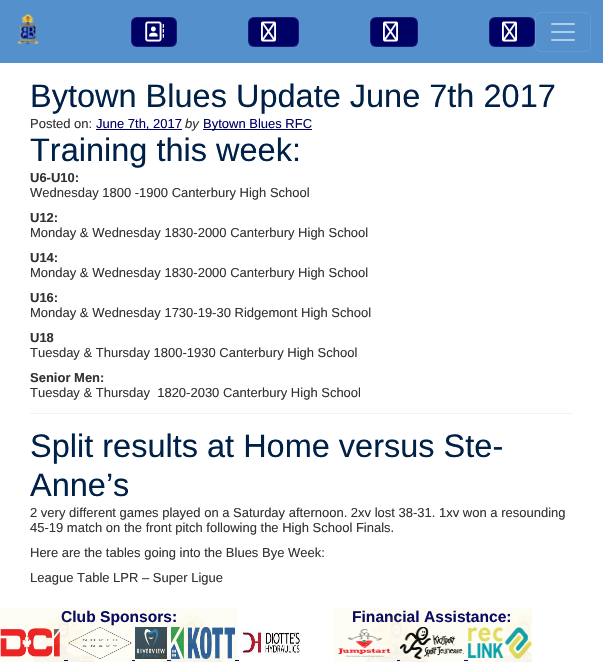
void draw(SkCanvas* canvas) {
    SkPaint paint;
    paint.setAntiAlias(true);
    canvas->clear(0xFFFFFFFF);
    paint.setColor(0xFFFEFDF5);
    canvas->drawRect(SkRect::MakeXYWH(333, 608, 199, 54), paint);
    canvas->drawRect(SkRect::MakeXYWH(0, 608, 237, 54), paint);
    paint.setColor(0xFF5490CC);
    canvas->drawRect(SkRect::MakeXYWH(0, 0, 603, 63), paint);
    canvas->drawImageRect(SkImages::DeferredFromEncodedData(SkData::MakeFromFileName("img1.png")), SkRect::MakeXYWH(17, 14, 22, 31), SkSamplingOptions());
    paint.setColor(0xFF000165);
    canvas->drawRoundRect(SkRect::MakeXYWH(131, 17, 46, 30), 6, 6, paint);
    paint.setStyle(SkPaint::kStroke_Style);
    paint.setStrokeWidth(1);
    paint.setColor(0x1AFFFFFF);
    canvas->drawRoundRect(SkRect::MakeXYWH(131.5f, 17.5f, 45, 29), 5.5f, 5.5f, paint);
    canvas->drawImageRect(SkImages::DeferredFromEncodedData(SkData::MakeFromFileName("img2.png")), SkRect::MakeXYWH(145, 21, 19, 21), SkSamplingOptions());
    paint.setStyle(SkPaint::kFill_Style);
    paint.setColor(0xFF000165);
    canvas->drawRoundRect(SkRect::MakeXYWH(248, 17, 51, 30), 6, 6, paint);
    paint.setStyle(SkPaint::kStroke_Style);
    paint.setColor(0x1AFFFFFF);
    canvas->drawRoundRect(SkRect::MakeXYWH(248.5f, 17.5f, 50, 29), 5.5f, 5.5f, paint);
    canvas->drawImageRect(SkImages::DeferredFromEncodedData(SkData::MakeFromFileName("img3.png")), SkRect::MakeXYWH(261, 21, 15, 21), SkSamplingOptions());
    paint.setStyle(SkPaint::kFill_Style);
    paint.setColor(0xFF000165);
    canvas->drawRoundRect(SkRect::MakeXYWH(370, 17, 48, 30), 6, 6, paint);
    paint.setStyle(SkPaint::kStroke_Style);
    paint.setColor(0x1AFFFFFF);
    canvas->drawRoundRect(SkRect::MakeXYWH(370.5f, 17.5f, 47, 29), 5.5f, 5.5f, paint);
    canvas->drawImageRect(SkImages::DeferredFromEncodedData(SkData::MakeFromFileName("img3.png")), SkRect::MakeXYWH(383, 21, 15, 21), SkSamplingOptions());
    paint.setStyle(SkPaint::kFill_Style);
    paint.setColor(0xFF000165);
    canvas->drawRoundRect(SkRect::MakeXYWH(489, 17, 46, 30), 6, 6, paint);
    paint.setStyle(SkPaint::kStroke_Style);
    paint.setColor(0x1AFFFFFF);
    canvas->drawRoundRect(SkRect::MakeXYWH(489.5f, 17.5f, 45, 29), 5.5f, 5.5f, paint);
    canvas->drawImageRect(SkImages::DeferredFromEncodedData(SkData::MakeFromFileName("img3.png")), SkRect::MakeXYWH(502, 21, 15, 21), SkSamplingOptions());
    paint.setColor(0xFF659BD1);
    canvas->drawRoundRect(SkRect::MakeXYWH(535.5f, 12.5f, 55, 39), 5.5f, 5.5f, paint);
    canvas->drawImageRect(SkImages::DeferredFromEncodedData(SkData::MakeFromFileName("img4.png")), SkRect::MakeXYWH(551, 23, 24, 18), SkSamplingOptions());
    SkFont font1(fontMgr->matchFamilyStyle("Liberation Sans", SkFontStyle::Normal()), 32.5f);
    font1.setSubpixel(true);
    paint.setStyle(SkPaint::kFill_Style);
    paint.setColor(0xFF002147);
    canvas->drawString("Bytown Blues Update June 7th 2017", 30, 107, font1, paint);
    SkFont font2(fontMgr->matchFamilyStyle("Liberation Sans", SkFontStyle::Normal()), 13);
    font2.setSubpixel(true);
    paint.setColor(0xFF333333);
    canvas->drawString("Posted on:", 30, 128, font2, paint);
    paint.setColor(0xFF000165);
    canvas->drawRect(SkRect::MakeXYWH(96, 129, 86, 1), paint);
    canvas->drawString("June 7th, 2017", 96, 128, font2, paint);
    SkFont font3(fontMgr->matchFamilyStyle("Liberation Sans", SkFontStyle::Italic()), 13);
    font3.setSubpixel(true);
    paint.setColor(0xFF333333);
    canvas->drawString("by", 185, 128, font3, paint);
    paint.setColor(0xFF000165);
    canvas->drawRect(SkRect::MakeXYWH(203, 129, 109, 1), paint);
    canvas->drawString("Bytown Blues RFC", 203, 128, font2, paint);
    paint.setColor(0xFF002147);
    canvas->drawString("Training this week:", 30, 161, font1, paint);
    SkFont font4(fontMgr->matchFamilyStyle("Liberation Sans", SkFontStyle::Bold()), 13);
    font4.setSubpixel(true);
    paint.setColor(0xFF333333);
    canvas->drawString("U6-U10:", 30, 182, font4, paint);
    canvas->drawString("Wednesday 1800 -1900 Canterbury High School", 30, 197, font2, paint);
    canvas->drawString("U12:", 30, 222, font4, paint);
    canvas->drawString("Monday & Wednesday 1830-2000 Canterbury High School", 30, 237, font2, paint);
    canvas->drawString("U14:", 30, 262, font4, paint);
    canvas->drawString("Monday & Wednesday 1830-2000 Canterbury High School", 30, 277, font2, paint);
    canvas->drawString("U16:", 30, 302, font4, paint);
    canvas->drawString("Monday & Wednesday 1730-19-30 Ridgemont High School", 30, 317, font2, paint);
    canvas->drawString("U18", 30, 342, font4, paint);
    canvas->drawString("Tuesday & Thursday 1800-1930 Canterbury High School", 30, 357, font2, paint);
    canvas->drawString("Senior Men:", 30, 382, font4, paint);
    canvas->drawString("Tuesday & Thursday  1820-2030 Canterbury High School", 30, 397, font2, paint);
    paint.setColor(0xFFF2F2F2);
    canvas->drawRect(SkRect::MakeXYWH(30, 413, 543, 1), paint);
    paint.setColor(0xFF002147);
    canvas->drawString("Split results at Home versus Ste-", 30, 457, font1, paint);
    canvas->drawString("Anne’s", 30, 496, font1, paint);
    paint.setColor(0xFF333333);
    canvas->drawString("2 very different games played on a Saturday afternoon. 2xv lost 38-31. 1xv won a resounding", 30, 517, font2, paint);
    canvas->drawString("45-19 match on the front pitch following the High School Finals.", 30, 532, font2, paint);
    canvas->drawString("Here are the tables going into the Blues Bye Week:", 30, 557, font2, paint);
    canvas->drawString("League Table LPR – Super Ligue", 30, 582, font2, paint);
    SkFont font5(fontMgr->matchFamilyStyle("Liberation Sans", SkFontStyle::Bold()), 15.6f);
    font5.setSubpixel(true);
    paint.setColor(0xFF0B0B62);
    canvas->drawString("Club Sponsors:", 61, 622, font5, paint);
    canvas->drawImageRect(SkImages::DeferredFromEncodedData(SkData::MakeFromFileName("img5.png")), SkRect::MakeXYWH(0, 628, 60, 29), SkSamplingOptions());
    canvas->drawImageRect(SkImages::DeferredFromEncodedData(SkData::MakeFromFileName("img6.png")), SkRect::MakeXYWH(68, 627, 64, 32), SkSamplingOptions());
    {
        const SkColor colors[] = {0xFF3C5664, 0xFF3C4648};
        const float stops[] = {0, 1};
        const SkPoint ends[] = {{135, 627}, {167, 659}};
        paint.setShader(SkGradientShader::MakeLinear(ends, colors, stops, 2, SkTileMode::kClamp));
        paint.setAlpha(255);
    }
    canvas->drawRect(SkRect::MakeXYWH(135, 627, 32, 32), paint);
    canvas->drawImageRect(SkImages::DeferredFromEncodedData(SkData::MakeFromFileName("img7.png")), SkRect::MakeXYWH(171, 627, 64, 32), SkSamplingOptions());
    canvas->drawImageRect(SkImages::DeferredFromEncodedData(SkData::MakeFromFileName("img8.png")), SkRect::MakeXYWH(241, 627, 60, 28), SkSamplingOptions());
    canvas->drawImageRect(SkImages::DeferredFromEncodedData(SkData::MakeFromFileName("img9.png")), SkRect::MakeXYWH(137, 629, 28, 28), SkSamplingOptions());
    paint.setShader(nullptr);
    paint.setColor(0xFF0B0B62);
    canvas->drawRect(SkRect::MakeXYWH(64, 660, 4, 1), paint);
    canvas->drawRect(SkRect::MakeXYWH(132, 660, 3, 1), paint);
    canvas->drawRect(SkRect::MakeXYWH(167, 660, 4, 1), paint);
    paint.setColor(0xFF000165);
    canvas->drawRect(SkRect::MakeXYWH(235, 660, 4, 1), paint);
    paint.setColor(0xFF0B0B62);
    canvas->drawRect(SkRect::MakeXYWH(235, 660, 2, 1), paint);
    canvas->drawImageRect(SkImages::DeferredFromEncodedData(SkData::MakeFromFileName("img10.png")), SkRect::MakeXYWH(33, 613, 190, 49), SkSamplingOptions());
    canvas->drawString("Financial Assistance:", 352, 622, font5, paint);
    canvas->drawImageRect(SkImages::DeferredFromEncodedData(SkData::MakeFromFileName("img11.png")), SkRect::MakeXYWH(338, 629, 54, 28), SkSamplingOptions());
    canvas->drawImageRect(SkImages::DeferredFromEncodedData(SkData::MakeFromFileName("img12.png")), SkRect::MakeXYWH(400, 627, 64, 32), SkSamplingOptions());
    canvas->drawImageRect(SkImages::DeferredFromEncodedData(SkData::MakeFromFileName("img13.png")), SkRect::MakeXYWH(468, 627, 64, 32), SkSamplingOptions());
    canvas->drawRect(SkRect::MakeXYWH(397, 660, 3, 1), paint);
    canvas->drawRect(SkRect::MakeXYWH(464, 660, 4, 1), paint);
    canvas->drawImageRect(SkImages::DeferredFromEncodedData(SkData::MakeFromFileName("img14.png")), SkRect::MakeXYWH(366, 613, 166, 49), SkSamplingOptions());
}
